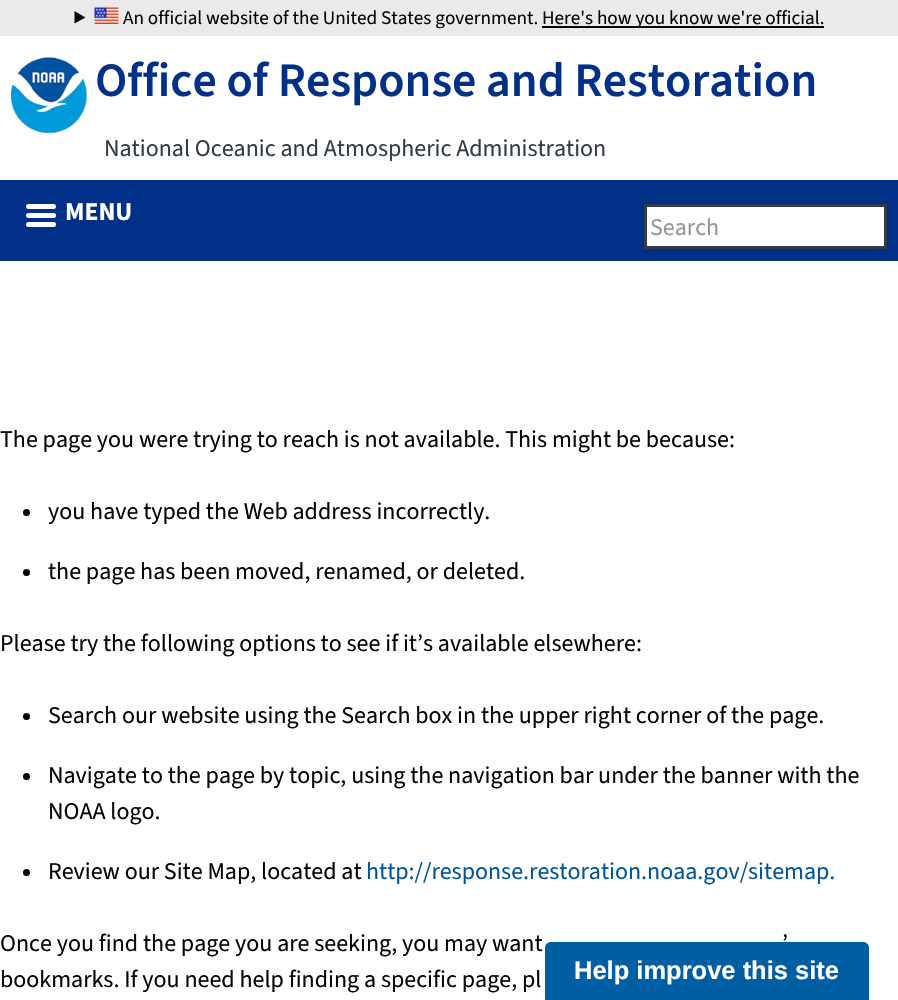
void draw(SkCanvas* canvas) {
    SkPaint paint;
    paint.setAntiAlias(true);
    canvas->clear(0xFFFFFFFF);
    paint.setColor(0xFFEAEAEA);
    canvas->drawRect(SkRect::MakeXYWH(0, 0, 898, 36), paint);
    paint.setColor(0xFF050505);
    canvas->drawPath(SkPathBuilder().moveTo(74.5f, 11).lineTo(85.5f, 17.5f).lineTo(74.5f, 23.5f).close().detach(), paint);
    canvas->drawImageRect(SkImages::DeferredFromEncodedData(SkData::MakeFromFileName("img1.png")), SkRect::MakeXYWH(94, 7, 25, 17), SkSamplingOptions());
    SkFont font1(fontMgr->matchFamilyStyle("Source Sans 3", SkFontStyle::Normal()), 19.2f);
    font1.setSubpixel(true);
    canvas->drawString("An official website of the United States government.", 123, 24, font1, paint);
    canvas->drawRect(SkRect::MakeXYWH(542, 26, 282, 2), paint);
    canvas->drawString("Here's how you know we're official.", 542, 24, font1, paint);
    canvas->drawImageRect(SkImages::DeferredFromEncodedData(SkData::MakeFromFileName("img2.png")), SkRect::MakeXYWH(11, 57, 76, 77), SkSamplingOptions());
    SkFont font2(fontMgr->matchFamilyStyle("Source Sans 3", SkFontStyle(600, SkFontStyle::kNormal_Width, SkFontStyle::kUpright_Slant)), 48);
    font2.setSubpixel(true);
    paint.setColor(0xFF003087);
    canvas->drawString("Office of Response and Restoration", 95, 96, font2, paint);
    SkFont font3(fontMgr->matchFamilyStyle("Source Sans 3", SkFontStyle::Normal()), 24);
    font3.setSubpixel(true);
    paint.setColor(0xFF323C46);
    canvas->drawString("National Oceanic and Atmospheric Administration", 104, 156, font3, paint);
    paint.setColor(0xFF003087);
    canvas->drawRect(SkRect::MakeXYWH(0, 180, 898, 81), paint);
    paint.setColor(0xFFFFFFFF);
    canvas->drawRoundRect(SkRect::MakeXYWH(26, 204, 30, 5), 2.5f, 2.5f, paint);
    SkFont font4(fontMgr->matchFamilyStyle("Source Sans 3", SkFontStyle::Bold()), 25.5f);
    font4.setSubpixel(true);
    canvas->drawString("MENU", 65, 220, font4, paint);
    canvas->drawRoundRect(SkRect::MakeXYWH(26, 213, 30, 5), 2.5f, 2.5f, paint);
    canvas->drawRoundRect(SkRect::MakeXYWH(26, 222, 30, 5), 2.5f, 2.5f, paint);
    canvas->drawRect(SkRect::MakeXYWH(645.5f, 205.5f, 240, 42), paint);
    paint.setStyle(SkPaint::kStroke_Style);
    paint.setStrokeWidth(3);
    paint.setColor(0xFF323C46);
    canvas->drawRect(SkRect::MakeXYWH(645.5f, 205.5f, 240, 42), paint);
    paint.setStyle(SkPaint::kFill_Style);
    paint.setColor(0xFF90969B);
    canvas->drawString("Search", 650, 235, font3, paint);
    paint.setColor(0xFF050505);
    canvas->drawString("The page you were trying to reach is not available. This might be because:", 0, 447, font3, paint);
    paint.setColor(0xFF000000);
    canvas->drawCircle(26.5f, 512.5f, 3.5f, paint);
    paint.setColor(0xFF050505);
    canvas->drawString("you have typed the Web address incorrectly.", 48, 519, font3, paint);
    paint.setColor(0xFF000000);
    canvas->drawCircle(26.5f, 572.5f, 3.5f, paint);
    paint.setColor(0xFF050505);
    canvas->drawString("the page has been moved, renamed, or deleted.", 48, 579, font3, paint);
    canvas->drawString("Please try the following options to see if it’s available elsewhere:", 0, 651, font3, paint);
    paint.setColor(0xFF000000);
    canvas->drawCircle(26.5f, 716.5f, 3.5f, paint);
    paint.setColor(0xFF050505);
    canvas->drawString("Search our website using the Search box in the upper right corner of the page.", 48, 723, font3, paint);
    paint.setColor(0xFF000000);
    canvas->drawCircle(26.5f, 776.5f, 3.5f, paint);
    paint.setColor(0xFF050505);
    canvas->drawString("Navigate to the page by topic, using the navigation bar under the banner with the", 48, 783, font3, paint);
    canvas->drawString("NOAA logo.", 48, 819, font3, paint);
    paint.setColor(0xFF000000);
    canvas->drawCircle(26.5f, 872.5f, 3.5f, paint);
    paint.setColor(0xFF050505);
    canvas->drawString("Review our Site Map, located at", 48, 879, font3, paint);
    paint.setColor(0xFF00559B);
    canvas->drawString("http://response.restoration.noaa.gov/sitemap.", 366, 879, font3, paint);
    paint.setColor(0xFF050505);
    canvas->drawString("Once you find the page you are seeking, you may want", 0, 951, font3, paint);
    canvas->drawString("’", 782, 951, font3, paint);
    canvas->drawString("bookmarks. If you need help finding a specific page, pl", 0, 987, font3, paint);
    paint.setColor(0xFF005EA2);
    canvas->drawPath(SkPathBuilder().moveTo(551, 942).lineTo(863, 942).cubicTo(866.5f, 942, 869, 944.5f, 869, 948).lineTo(869, 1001).lineTo(545, 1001).lineTo(545, 948).cubicTo(545, 944.5f, 547.5f, 942, 551, 942).close().detach(), paint);
    SkFont font5(fontMgr->matchFamilyStyle("Liberation Sans", SkFontStyle::Bold()), 25.5f);
    font5.setSubpixel(true);
    paint.setColor(0xFFFFFFFF);
    canvas->drawString("Help improve this site", 574, 979, font5, paint);
}
